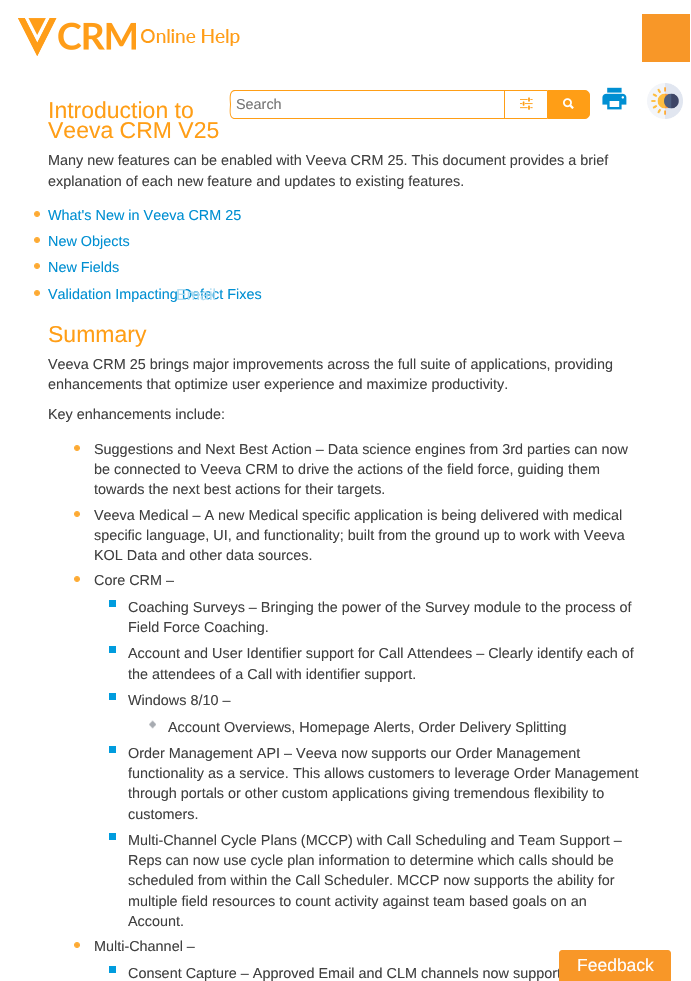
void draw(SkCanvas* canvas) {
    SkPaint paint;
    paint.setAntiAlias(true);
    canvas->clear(0xFFFFFFFF);
    canvas->drawImageRect(SkImages::DeferredFromEncodedData(SkData::MakeFromFileName("img1.png")), SkRect::MakeXYWH(18, 18, 222, 38), SkSamplingOptions());
    paint.setColor(0xFFF89728);
    canvas->drawRect(SkRect::MakeXYWH(642, 14, 48, 48), paint);
    canvas->drawImageRect(SkImages::DeferredFromEncodedData(SkData::MakeFromFileName("img2.png")), SkRect::MakeXYWH(602, 87, 25, 23), SkSamplingOptions());
    canvas->drawImageRect(SkImages::DeferredFromEncodedData(SkData::MakeFromFileName("img3.png")), SkRect::MakeXYWH(647, 83, 36, 36), SkSamplingOptions());
    paint.setColor(0xFFFF9E16);
    canvas->drawPath(SkPathBuilder(SkPathFillType::kEvenOdd).moveTo(235, 90).lineTo(504, 90).lineTo(504, 119).lineTo(235, 119).cubicTo(228, 119, 230, 109, 230, 104).cubicTo(230, 100, 228, 90, 235, 90).close().moveTo(235, 91).lineTo(504, 91).lineTo(504, 118).lineTo(234, 118).cubicTo(229, 117, 231, 108, 231, 104).cubicTo(231, 101, 229, 91, 235, 91).close().detach(), paint);
    SkFont font1(fontMgr->matchFamilyStyle("Liberation Sans", SkFontStyle::Normal()), 14.4f);
    font1.setSubpixel(true);
    paint.setColor(0xFF757575);
    canvas->drawString("Search", 236, 109, font1, paint);
    paint.setColor(0xFFFF9E16);
    canvas->drawRect(SkRect::MakeXYWH(504, 90, 43, 1), paint);
    canvas->drawRect(SkRect::MakeXYWH(504, 118, 43, 1), paint);
    canvas->drawRect(SkRect::MakeXYWH(504, 90, 1, 29), paint);
    canvas->drawImageRect(SkImages::DeferredFromEncodedData(SkData::MakeFromFileName("img4.png")), SkRect::MakeXYWH(520, 97, 13, 13), SkSamplingOptions());
    canvas->drawPath(SkPathBuilder().moveTo(547.5f, 90.5f).lineTo(585, 90.5f).cubicTo(587.5f, 90.5f, 589.5f, 92.5f, 589.5f, 95).lineTo(589.5f, 114).cubicTo(589.5f, 116.5f, 587.5f, 118.5f, 585, 118.5f).lineTo(547.5f, 118.5f).close().detach(), paint);
    paint.setStyle(SkPaint::kStroke_Style);
    paint.setStrokeWidth(1);
    canvas->drawPath(SkPathBuilder().moveTo(547.5f, 90.5f).lineTo(585, 90.5f).cubicTo(587.5f, 90.5f, 589.5f, 92.5f, 589.5f, 95).lineTo(589.5f, 114).cubicTo(589.5f, 116.5f, 587.5f, 118.5f, 585, 118.5f).lineTo(547.5f, 118.5f).close().detach(), paint);
    canvas->drawImageRect(SkImages::DeferredFromEncodedData(SkData::MakeFromFileName("img5.png")), SkRect::MakeXYWH(563, 98, 11, 11), SkSamplingOptions());
    SkFont font2(fontMgr->matchFamilyStyle("Liberation Sans", SkFontStyle::Normal()), 23);
    font2.setSubpixel(true);
    paint.setStyle(SkPaint::kFill_Style);
    canvas->drawString("Introduction to", 48, 118, font2, paint);
    canvas->drawString("Veeva CRM V25", 48, 138, font2, paint);
    paint.setColor(0xFF404040);
    canvas->drawString("Many new features can be enabled with Veeva CRM 25. This document provides a brief", 48, 165, font1, paint);
    canvas->drawString("explanation of each new feature and updates to existing features.", 48, 186, font1, paint);
    canvas->drawImageRect(SkImages::DeferredFromEncodedData(SkData::MakeFromFileName("img6.png")), SkRect::MakeXYWH(34, 211, 6, 6), SkSamplingOptions());
    paint.setColor(0xFF008FD2);
    canvas->drawString("What's New in Veeva CRM 25", 48, 220, font1, paint);
    canvas->drawImageRect(SkImages::DeferredFromEncodedData(SkData::MakeFromFileName("img6.png")), SkRect::MakeXYWH(34, 237, 6, 6), SkSamplingOptions());
    canvas->drawString("New Objects", 48, 246, font1, paint);
    canvas->drawImageRect(SkImages::DeferredFromEncodedData(SkData::MakeFromFileName("img6.png")), SkRect::MakeXYWH(34, 263, 6, 6), SkSamplingOptions());
    canvas->drawString("New Fields", 48, 272, font1, paint);
    canvas->drawImageRect(SkImages::DeferredFromEncodedData(SkData::MakeFromFileName("img6.png")), SkRect::MakeXYWH(34, 290, 6, 6), SkSamplingOptions());
    canvas->drawString("Validation Impacting Defect Fixes", 48, 299, font1, paint);
    paint.setColor(0xFFFF9E16);
    canvas->drawString("Summary", 48, 342, font2, paint);
    paint.setColor(0xFF404040);
    canvas->drawString("Veeva CRM 25 brings major improvements across the full suite of applications, providing", 48, 369, font1, paint);
    canvas->drawString("enhancements that optimize user experience and maximize productivity.", 48, 389, font1, paint);
    canvas->drawString("Key enhancements include:", 48, 419, font1, paint);
    canvas->drawImageRect(SkImages::DeferredFromEncodedData(SkData::MakeFromFileName("img6.png")), SkRect::MakeXYWH(74, 445, 6, 6), SkSamplingOptions());
    canvas->drawString("Suggestions and Next Best Action – Data science engines from 3rd parties can now", 94, 454, font1, paint);
    canvas->drawString("be connected to Veeva CRM to drive the actions of the field force, guiding them", 94, 474, font1, paint);
    canvas->drawString("towards the next best actions for their targets.", 94, 494, font1, paint);
    canvas->drawImageRect(SkImages::DeferredFromEncodedData(SkData::MakeFromFileName("img6.png")), SkRect::MakeXYWH(74, 511, 6, 6), SkSamplingOptions());
    canvas->drawString("Veeva Medical – A new Medical specific application is being delivered with medical", 94, 520, font1, paint);
    canvas->drawString("specific language, UI, and functionality; built from the ground up to work with Veeva", 94, 540, font1, paint);
    canvas->drawString("KOL Data and other data sources.", 94, 560, font1, paint);
    canvas->drawImageRect(SkImages::DeferredFromEncodedData(SkData::MakeFromFileName("img6.png")), SkRect::MakeXYWH(74, 576, 6, 6), SkSamplingOptions());
    canvas->drawString("Core CRM –", 94, 585, font1, paint);
    paint.setColor(0xFF009CDE);
    canvas->drawRect(SkRect::MakeXYWH(109, 600, 7, 7), paint);
    paint.setColor(0xFF404040);
    canvas->drawString("Coaching Surveys – Bringing the power of the Survey module to the process of", 128, 612, font1, paint);
    canvas->drawString("Field Force Coaching.", 128, 632, font1, paint);
    paint.setColor(0xFF009CDE);
    canvas->drawRect(SkRect::MakeXYWH(109, 646, 7, 7), paint);
    paint.setColor(0xFF404040);
    canvas->drawString("Account and User Identifier support for Call Attendees – Clearly identify each of", 128, 658, font1, paint);
    canvas->drawString("the attendees of a Call with identifier support.", 128, 679, font1, paint);
    paint.setColor(0xFF009CDE);
    canvas->drawRect(SkRect::MakeXYWH(109, 693, 7, 7), paint);
    paint.setColor(0xFF404040);
    canvas->drawString("Windows 8/10 –", 128, 705, font1, paint);
    canvas->drawImageRect(SkImages::DeferredFromEncodedData(SkData::MakeFromFileName("img7.png")), SkRect::MakeXYWH(149, 720, 7, 9), SkSamplingOptions());
    canvas->drawString("Account Overviews, Homepage Alerts, Order Delivery Splitting", 168, 732, font1, paint);
    paint.setColor(0xFF009CDE);
    canvas->drawRect(SkRect::MakeXYWH(109, 746, 7, 7), paint);
    paint.setColor(0xFF404040);
    canvas->drawString("Order Management API – Veeva now supports our Order Management", 128, 758, font1, paint);
    canvas->drawString("functionality as a service. This allows customers to leverage Order Management", 128, 778, font1, paint);
    canvas->drawString("through portals or other custom applications giving tremendous flexibility to", 128, 798, font1, paint);
    canvas->drawString("customers.", 128, 819, font1, paint);
    paint.setColor(0xFF009CDE);
    canvas->drawRect(SkRect::MakeXYWH(109, 833, 7, 7), paint);
    paint.setColor(0xFF404040);
    canvas->drawString("Multi-Channel Cycle Plans (MCCP) with Call Scheduling and Team Support –", 128, 845, font1, paint);
    canvas->drawString("Reps can now use cycle plan information to determine which calls should be", 128, 865, font1, paint);
    canvas->drawString("scheduled from within the Call Scheduler. MCCP now supports the ability for", 128, 885, font1, paint);
    canvas->drawString("multiple field resources to count activity against team based goals on an", 128, 906, font1, paint);
    canvas->drawString("Account.", 128, 926, font1, paint);
    canvas->drawImageRect(SkImages::DeferredFromEncodedData(SkData::MakeFromFileName("img6.png")), SkRect::MakeXYWH(74, 942, 6, 6), SkSamplingOptions());
    canvas->drawString("Multi-Channel –", 94, 951, font1, paint);
    paint.setColor(0xFF009CDE);
    canvas->drawRect(SkRect::MakeXYWH(109, 966, 7, 7), paint);
    paint.setColor(0xFF404040);
    canvas->drawString("Consent Capture – Approved Email and CLM channels now support", 128, 978, font1, paint);
    SkFont font3(fontMgr->matchFamilyStyle("Liberation Sans", SkFontStyle::Normal()), 16);
    font3.setSubpixel(true);
    paint.setColor(0xFFAEDCF1);
    canvas->drawString("Email", 176, 300, font3, paint);
    paint.setColor(0xFFF89728);
    canvas->drawPath(SkPathBuilder().moveTo(562, 950).lineTo(668, 950).cubicTo(669.5f, 950, 671, 951.5f, 671, 953).lineTo(671, 981).lineTo(559, 981).lineTo(559, 953).cubicTo(559, 951.5f, 560.5f, 950, 562, 950).close().detach(), paint);
    SkFont font4(fontMgr->matchFamilyStyle("Liberation Sans", SkFontStyle::Normal()), 17.5f);
    font4.setSubpixel(true);
    paint.setColor(0xFFFFFFFF);
    canvas->drawString("Feedback", 577, 971, font4, paint);
}
